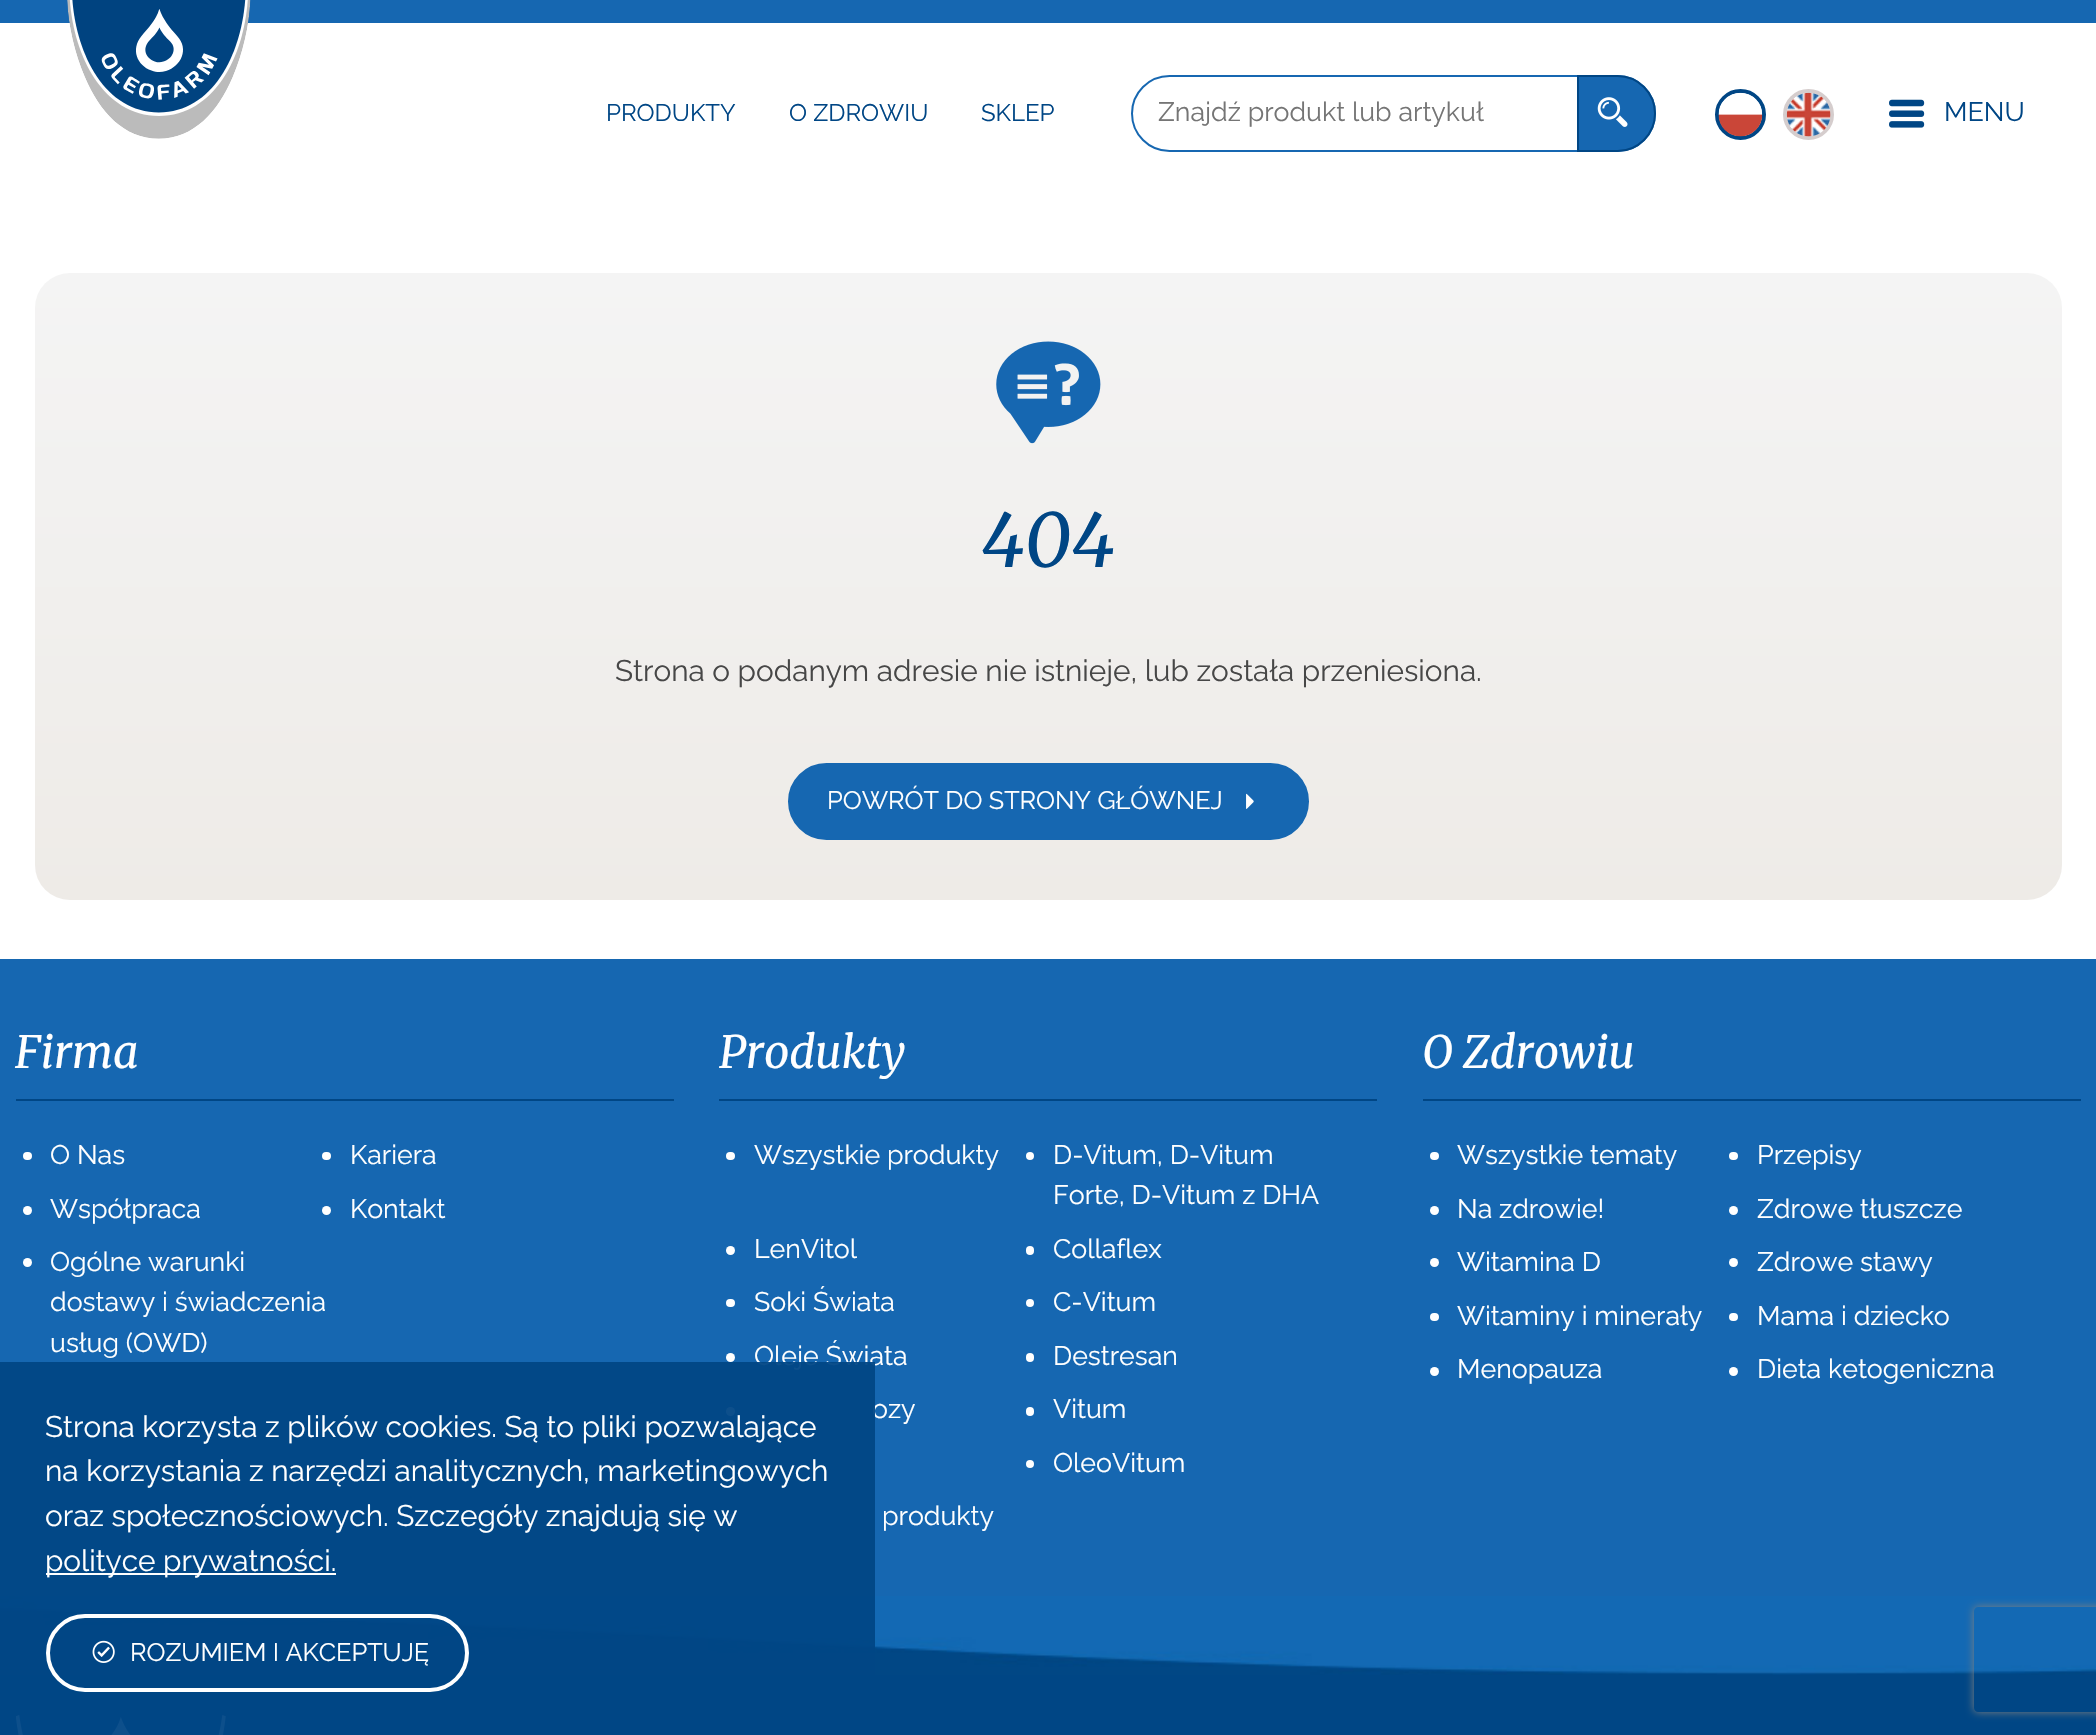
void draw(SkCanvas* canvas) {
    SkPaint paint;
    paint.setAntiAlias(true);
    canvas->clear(0xFFFFFFFF);
    paint.setColor(0xFF1667B1);
    canvas->drawRect(SkRect::MakeXYWH(0, 0, 2096, 23), paint);
    canvas->drawImageRect(SkImages::DeferredFromEncodedData(SkData::MakeFromFileName("img1.png")), SkRect::MakeXYWH(67, 0, 184, 139), SkSamplingOptions());
    SkFont font1(fontMgr->matchFamilyStyle("Raleway", SkFontStyle::Normal()), 24);
    font1.setSubpixel(true);
    paint.setColor(0xFF004685);
    canvas->drawString("PRODUKTY", 606, 121, font1, paint);
    canvas->drawString("O ZDROWIU", 789, 121, font1, paint);
    canvas->drawString("SKLEP", 981, 121, font1, paint);
    paint.setStyle(SkPaint::kStroke_Style);
    paint.setStrokeWidth(2);
    paint.setColor(0xFF1667B1);
    canvas->drawRoundRect(SkRect::MakeXYWH(1132, 76, 523, 75), 37.5f, 37.5f, paint);
    SkFont font2(fontMgr->matchFamilyStyle("Raleway", SkFontStyle::Normal()), 26.75f);
    font2.setSubpixel(true);
    paint.setStyle(SkPaint::kFill_Style);
    paint.setColor(0xFF757575);
    canvas->drawString("Znajdź produkt lub artykuł", 1158, 121, font2, paint);
    paint.setColor(0xFF1667B1);
    canvas->drawPath(SkPathBuilder().moveTo(1578, 76).lineTo(1617.5f, 76).cubicTo(1638, 76, 1655, 93, 1655, 113.5f).cubicTo(1655, 134, 1638, 151, 1617.5f, 151).lineTo(1578, 151).close().detach(), paint);
    paint.setStyle(SkPaint::kStroke_Style);
    paint.setColor(0xFF004685);
    canvas->drawPath(SkPathBuilder().moveTo(1578, 76).lineTo(1617.5f, 76).cubicTo(1638, 76, 1655, 93, 1655, 113.5f).cubicTo(1655, 134, 1638, 151, 1617.5f, 151).lineTo(1578, 151).close().detach(), paint);
    canvas->drawImageRect(SkImages::DeferredFromEncodedData(SkData::MakeFromFileName("img2.png")), SkRect::MakeXYWH(1597, 97, 31, 30), SkSamplingOptions());
    paint.setStrokeWidth(4);
    canvas->drawCircle(1740.5f, 114.5f, 23.5f, paint);
    canvas->drawImageRect(SkImages::DeferredFromEncodedData(SkData::MakeFromFileName("img3.png")), SkRect::MakeXYWH(1718, 92, 45, 45), SkSamplingOptions());
    paint.setColor(0xFFD5CDCD);
    canvas->drawCircle(1808.5f, 114.5f, 23.5f, paint);
    canvas->drawImageRect(SkImages::DeferredFromEncodedData(SkData::MakeFromFileName("img4.png")), SkRect::MakeXYWH(1786, 92, 45, 45), SkSamplingOptions());
    canvas->drawImageRect(SkImages::DeferredFromEncodedData(SkData::MakeFromFileName("img5.png")), SkRect::MakeXYWH(1889, 99, 36, 29), SkSamplingOptions());
    paint.setStyle(SkPaint::kFill_Style);
    paint.setColor(0xFF004685);
    canvas->drawString("MENU", 1944, 121, font2, paint);
    {
        const SkColor colors[] = {0xFFEEEBE7, 0xFFF4F4F4};
        const float stops[] = {0, 1};
        const SkPoint ends[] = {{1048, 900}, {1048, 273}};
        paint.setShader(SkGradientShader::MakeLinear(ends, colors, stops, 2, SkTileMode::kClamp));
        paint.setAlpha(255);
    }
    canvas->drawRoundRect(SkRect::MakeXYWH(35, 273, 2027, 627), 35, 35, paint);
    canvas->drawImageRect(SkImages::DeferredFromEncodedData(SkData::MakeFromFileName("img6.png")), SkRect::MakeXYWH(996, 341, 105, 103), SkSamplingOptions());
    SkFont font3(fontMgr->matchFamilyStyle("Merriweather", SkFontStyle(300, SkFontStyle::kNormal_Width, SkFontStyle::kItalic_Slant)), 74);
    font3.setSubpixel(true);
    paint.setShader(nullptr);
    paint.setColor(0xFF004685);
    canvas->drawString("404", 981, 567, font3, paint);
    SkFont font4(fontMgr->matchFamilyStyle("Raleway", SkFontStyle::Normal()), 29.75f);
    font4.setSubpixel(true);
    paint.setColor(0xFF474747);
    canvas->drawString("Strona o podanym adresie nie istnieje, lub została przeniesiona.", 615, 681, font4, paint);
    paint.setColor(0xFF1667B1);
    canvas->drawRoundRect(SkRect::MakeXYWH(790, 765, 517, 73), 36.5f, 36.5f, paint);
    paint.setStyle(SkPaint::kStroke_Style);
    canvas->drawRoundRect(SkRect::MakeXYWH(790, 765, 517, 73), 36.5f, 36.5f, paint);
    SkFont font5(fontMgr->matchFamilyStyle("Raleway", SkFontStyle::Normal()), 25.25f);
    font5.setSubpixel(true);
    paint.setStyle(SkPaint::kFill_Style);
    paint.setColor(0xFFFFFFFF);
    canvas->drawString("POWRÓT DO STRONY GŁÓWNEJ", 827, 809, font5, paint);
    canvas->drawImageRect(SkImages::DeferredFromEncodedData(SkData::MakeFromFileName("img7.png")), SkRect::MakeXYWH(1246, 793, 8, 16), SkSamplingOptions());
    paint.setColor(0xFF1667B1);
    canvas->drawRect(SkRect::MakeXYWH(0, 959, 2096, 637), paint);
    paint.setColor(0xFF004685);
    canvas->drawRect(SkRect::MakeXYWH(16, 1099, 658, 2), paint);
    SkFont font6(fontMgr->matchFamilyStyle("Merriweather", SkFontStyle(300, SkFontStyle::kNormal_Width, SkFontStyle::kItalic_Slant)), 44.5f);
    font6.setSubpixel(true);
    paint.setColor(0xFFFFFFFF);
    canvas->drawString("Firma", 15, 1068, font6, paint);
    canvas->drawRoundRect(SkRect::MakeXYWH(23, 1152, 9, 8), 4, 4, paint);
    canvas->drawString("O Nas", 50, 1164, font2, paint);
    canvas->drawRoundRect(SkRect::MakeXYWH(322, 1152, 9, 8), 4, 4, paint);
    canvas->drawString("Kariera", 350, 1164, font2, paint);
    canvas->drawCircle(27.5f, 1210.5f, 4.5f, paint);
    canvas->drawString("Współpraca", 50, 1218, font2, paint);
    canvas->drawCircle(326.5f, 1210.5f, 4.5f, paint);
    canvas->drawString("Kontakt", 350, 1218, font2, paint);
    canvas->drawCircle(27.5f, 1262.5f, 4.5f, paint);
    canvas->drawString("Ogólne warunki", 50, 1271, font2, paint);
    canvas->drawString("dostawy i świadczenia", 50, 1311, font2, paint);
    canvas->drawString("usług (OWD)", 50, 1352, font2, paint);
    paint.setColor(0xFF004685);
    canvas->drawRect(SkRect::MakeXYWH(719, 1099, 658, 2), paint);
    paint.setColor(0xFFFFFFFF);
    canvas->drawString("Produkty", 719, 1068, font6, paint);
    canvas->drawRoundRect(SkRect::MakeXYWH(726, 1152, 9, 8), 4, 4, paint);
    canvas->drawString("Wszystkie produkty", 754, 1164, font2, paint);
    canvas->drawCircle(1030, 1156, 4, paint);
    canvas->drawString("D-Vitum, D-Vitum", 1053, 1164, font2, paint);
    canvas->drawString("Forte, D-Vitum z DHA", 1053, 1204, font2, paint);
    canvas->drawCircle(730.5f, 1250.5f, 4.5f, paint);
    canvas->drawString("LenVitol", 754, 1258, font2, paint);
    canvas->drawRoundRect(SkRect::MakeXYWH(1026, 1246, 8, 9), 4, 4, paint);
    canvas->drawString("Collaflex", 1053, 1258, font2, paint);
    canvas->drawRoundRect(SkRect::MakeXYWH(726, 1299, 9, 8), 4, 4, paint);
    canvas->drawString("Soki Świata", 754, 1311, font2, paint);
    canvas->drawCircle(1030, 1303, 4, paint);
    canvas->drawString("C-Vitum", 1053, 1311, font2, paint);
    canvas->drawCircle(730.5f, 1357.5f, 4.5f, paint);
    canvas->drawString("Oleje Świata", 754, 1365, font2, paint);
    canvas->drawRoundRect(SkRect::MakeXYWH(1026, 1353, 8, 9), 4, 4, paint);
    canvas->drawString("Destresan", 1053, 1365, font2, paint);
    canvas->drawCircle(730.5f, 1411.5f, 4.5f, paint);
    canvas->drawString("ozy", 872, 1418, font2, paint);
    canvas->drawRoundRect(SkRect::MakeXYWH(1026, 1407, 8, 9), 4, 4, paint);
    canvas->drawString("Vitum", 1053, 1418, font2, paint);
    canvas->drawRoundRect(SkRect::MakeXYWH(726, 1460, 9, 8), 4, 4, paint);
    canvas->drawCircle(1030, 1464, 4, paint);
    canvas->drawString("OleoVitum", 1053, 1472, font2, paint);
    canvas->drawCircle(730.5f, 1518.5f, 4.5f, paint);
    canvas->drawString("produkty", 882, 1525, font2, paint);
    paint.setColor(0xFF004685);
    canvas->drawRect(SkRect::MakeXYWH(1423, 1099, 658, 2), paint);
    paint.setColor(0xFFFFFFFF);
    canvas->drawString("O Zdrowiu", 1422, 1068, font6, paint);
    canvas->drawRoundRect(SkRect::MakeXYWH(1430, 1152, 9, 8), 4, 4, paint);
    canvas->drawString("Wszystkie tematy", 1457, 1164, font2, paint);
    canvas->drawRoundRect(SkRect::MakeXYWH(1729, 1152, 9, 8), 4, 4, paint);
    canvas->drawString("Przepisy", 1757, 1164, font2, paint);
    canvas->drawCircle(1434.5f, 1210.5f, 4.5f, paint);
    canvas->drawString("Na zdrowie!", 1457, 1218, font2, paint);
    canvas->drawCircle(1733.5f, 1210.5f, 4.5f, paint);
    canvas->drawString("Zdrowe tłuszcze", 1757, 1218, font2, paint);
    canvas->drawCircle(1434.5f, 1262.5f, 4.5f, paint);
    canvas->drawString("Witamina D", 1457, 1271, font2, paint);
    canvas->drawCircle(1733.5f, 1262.5f, 4.5f, paint);
    canvas->drawString("Zdrowe stawy", 1757, 1271, font2, paint);
    canvas->drawRoundRect(SkRect::MakeXYWH(1430, 1313, 9, 8), 4, 4, paint);
    canvas->drawString("Witaminy i minerały", 1457, 1325, font2, paint);
    canvas->drawRoundRect(SkRect::MakeXYWH(1729, 1313, 9, 8), 4, 4, paint);
    canvas->drawString("Mama i dziecko", 1757, 1325, font2, paint);
    canvas->drawCircle(1434.5f, 1371.5f, 4.5f, paint);
    canvas->drawString("Menopauza", 1457, 1378, font2, paint);
    canvas->drawCircle(1733.5f, 1371.5f, 4.5f, paint);
    canvas->drawString("Dieta ketogeniczna", 1757, 1378, font2, paint);
    paint.setColor(0xFF004685);
    canvas->drawRect(SkRect::MakeXYWH(0, 1675, 2096, 60), paint);
    canvas->drawImageRect(SkImages::DeferredFromEncodedData(SkData::MakeFromFileName("img8.png")), SkRect::MakeXYWH(0, 1596, 2096, 79), SkSamplingOptions());
    canvas->drawImageRect(SkImages::DeferredFromEncodedData(SkData::MakeFromFileName("img9.png")), SkRect::MakeXYWH(16, 1715, 210, 20), SkSamplingOptions());
    paint.setColor(0xF2004685);
    canvas->drawRect(SkRect::MakeXYWH(0, 1362, 875, 373), paint);
    paint.setColor(0xFFFFFFFF);
    canvas->drawString("Strona korzysta z plików cookies. Są to pliki pozwalające", 45, 1437, font4, paint);
    canvas->drawString("na korzystania z narzędzi analitycznych, marketingowych", 45, 1481, font4, paint);
    canvas->drawString("oraz społecznościowych. Szczegóły znajdują się w", 45, 1526, font4, paint);
    canvas->drawRect(SkRect::MakeXYWH(46, 1573, 290, 2), paint);
    canvas->drawString("polityce prywatności.", 45, 1571, font4, paint);
    paint.setStyle(SkPaint::kStroke_Style);
    canvas->drawRoundRect(SkRect::MakeXYWH(48, 1616, 419, 74), 37, 37, paint);
    canvas->drawImageRect(SkImages::DeferredFromEncodedData(SkData::MakeFromFileName("img10.png")), SkRect::MakeXYWH(92, 1640, 23, 23), SkSamplingOptions());
    paint.setStyle(SkPaint::kFill_Style);
    canvas->drawString("ROZUMIEM I AKCEPTUJĘ", 130, 1661, font5, paint);
    canvas->save();
    canvas->clipPath(SkPathBuilder(SkPathFillType::kEvenOdd).moveTo(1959, 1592).lineTo(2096, 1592).lineTo(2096, 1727).lineTo(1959, 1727).close().moveTo(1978, 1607).lineTo(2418, 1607).cubicTo(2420, 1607, 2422, 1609, 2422, 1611).lineTo(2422, 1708).cubicTo(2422, 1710, 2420, 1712, 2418, 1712).lineTo(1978, 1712).cubicTo(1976, 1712, 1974, 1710, 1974, 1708).lineTo(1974, 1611).cubicTo(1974, 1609, 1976, 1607, 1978, 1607).close().detach(), true);
    paint.setColor(0xFF808080);
    paint.setMaskFilter(SkMaskFilter::MakeBlur(kNormal_SkBlurStyle, 4.5f));
    canvas->drawRoundRect(SkRect::MakeXYWH(1974, 1607, 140, 105), 4, 4, paint);
    paint.setMaskFilter(nullptr);
    canvas->restore();
}
